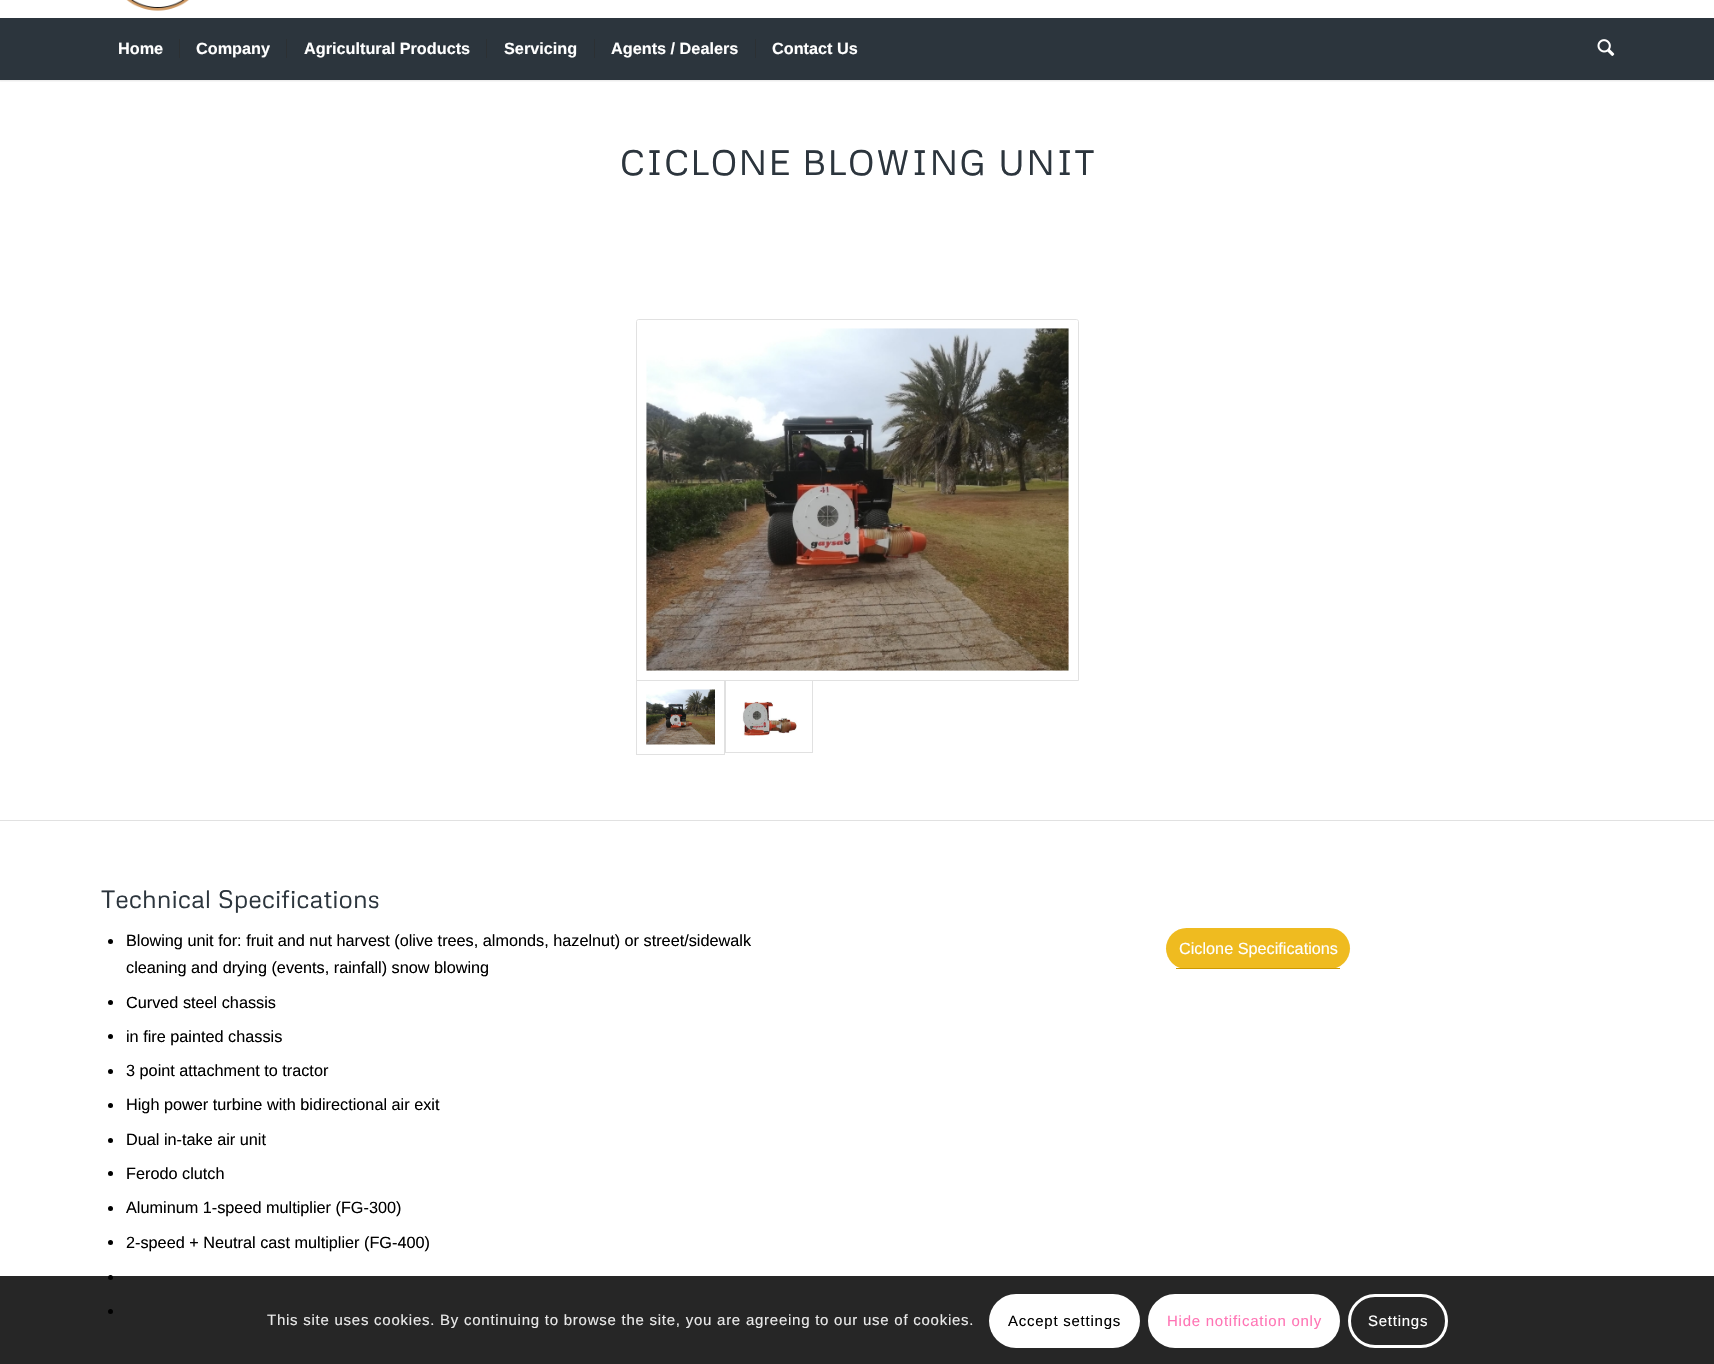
void draw(SkCanvas* canvas) {
    SkPaint paint;
    paint.setAntiAlias(true);
    auto spacedText = [&](const char* s, float x, float y, const SkFont& font, const SkPaint& ink, float letter, float word) {
        std::vector<SkGlyphID> glyphs(font.countText(s, strlen(s), SkTextEncoding::kUTF8));
        std::vector<float> xs(glyphs.size());
        font.textToGlyphs(s, strlen(s), SkTextEncoding::kUTF8, glyphs);
        font.getXPos(glyphs, xs, x);
        float extra = 0;
        for (size_t i = 0; i < glyphs.size(); i++) {
            xs[i] += extra;
            extra += letter + word * (glyphs[i] == font.unicharToGlyph(' '));
        }
        canvas->drawTextBlob(SkTextBlob::MakeFromPosHGlyphs(glyphs, xs, y, font), 0, 0, ink);
    };
    canvas->clear(0xFFFFFFFF);
    canvas->save();
    canvas->clipRect(SkRect::MakeXYWH(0, 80, 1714, 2));
    paint.setColor(0x1A000000);
    paint.setMaskFilter(SkMaskFilter::MakeBlur(kNormal_SkBlurStyle, 1));
    canvas->drawRect(SkRect::MakeXYWH(-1, -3, 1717, 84), paint);
    paint.setMaskFilter(nullptr);
    canvas->restore();
    canvas->drawImageRect(SkImages::DeferredFromEncodedData(SkData::MakeFromFileName("img1.png")), SkRect::MakeXYWH(126, 0, 63, 11), SkSamplingOptions());
    paint.setColor(0xFF2C353D);
    canvas->drawRect(SkRect::MakeXYWH(0, 18, 1714, 62), paint);
    SkFont font1(fontMgr->matchFamilyStyle("Liberation Sans", SkFontStyle::Bold()), 16.25f);
    font1.setSubpixel(true);
    paint.setColor(0xFFFFFFFF);
    canvas->drawString("Home", 118, 54, font1, paint);
    canvas->drawString("Company", 196, 54, font1, paint);
    paint.setColor(0xFF2C3033);
    canvas->drawRect(SkRect::MakeXYWH(179, 39, 1, 19), paint);
    paint.setColor(0xFFFFFFFF);
    canvas->drawString("Agricultural Products", 304, 54, font1, paint);
    paint.setColor(0xFF2C3033);
    canvas->drawRect(SkRect::MakeXYWH(286, 39, 1, 19), paint);
    paint.setColor(0xFFFFFFFF);
    canvas->drawString("Servicing", 504, 54, font1, paint);
    paint.setColor(0xFF2C3033);
    canvas->drawRect(SkRect::MakeXYWH(486, 39, 1, 19), paint);
    paint.setColor(0xFFFFFFFF);
    canvas->drawString("Agents / Dealers", 611, 54, font1, paint);
    paint.setColor(0xFF2C3033);
    canvas->drawRect(SkRect::MakeXYWH(594, 39, 1, 19), paint);
    paint.setColor(0xFFFFFFFF);
    canvas->drawString("Contact Us", 772, 54, font1, paint);
    paint.setColor(0xFF2C3033);
    canvas->drawRect(SkRect::MakeXYWH(755, 39, 1, 19), paint);
    canvas->drawImageRect(SkImages::DeferredFromEncodedData(SkData::MakeFromFileName("img2.png")), SkRect::MakeXYWH(1597, 39, 18, 17), SkSamplingOptions());
    SkFont font2(fontMgr->matchFamilyStyle("Metrophobic", SkFontStyle::Normal()), 35);
    font2.setSubpixel(true);
    paint.setColor(0xFF2C353D);
    spacedText("CICLONE BLOWING UNIT", 620, 175, font2, paint, 1.25f, 0);
    paint.setStyle(SkPaint::kStroke_Style);
    paint.setStrokeWidth(1);
    paint.setColor(0xFFE1E1E1);
    canvas->drawPath(SkPathBuilder().moveTo(638.5f, 319.5f).lineTo(1076.5f, 319.5f).cubicTo(1077.5f, 319.5f, 1078.5f, 320.5f, 1078.5f, 321.5f).lineTo(1078.5f, 680.5f).lineTo(636.5f, 680.5f).lineTo(636.5f, 321.5f).cubicTo(636.5f, 320.5f, 637.5f, 319.5f, 638.5f, 319.5f).close().detach(), paint);
    canvas->drawImageRect(SkImages::DeferredFromEncodedData(SkData::MakeFromFileName("img3.png")), SkRect::MakeXYWH(646, 328, 423, 343), SkSamplingOptions());
    canvas->drawRect(SkRect::MakeXYWH(636.5f, 680.5f, 88, 74), paint);
    canvas->drawImageRect(SkImages::DeferredFromEncodedData(SkData::MakeFromFileName("img4.png")), SkRect::MakeXYWH(646, 689, 69, 56), SkSamplingOptions());
    canvas->drawRect(SkRect::MakeXYWH(725.5f, 680.5f, 87, 72), paint);
    canvas->drawImageRect(SkImages::DeferredFromEncodedData(SkData::MakeFromFileName("img5.png")), SkRect::MakeXYWH(742, 701, 55, 35), SkSamplingOptions());
    paint.setStyle(SkPaint::kFill_Style);
    canvas->drawRect(SkRect::MakeXYWH(0, 820, 1714, 1), paint);
    SkFont font3(fontMgr->matchFamilyStyle("Metrophobic", SkFontStyle::Normal()), 25);
    font3.setSubpixel(true);
    paint.setColor(0xFF2C353D);
    canvas->drawString("Technical Specifications", 101, 908, font3, paint);
    paint.setColor(0xFF000000);
    canvas->drawCircle(110.5f, 941.5f, 2.5f, paint);
    SkFont font4(fontMgr->matchFamilyStyle("Liberation Sans", SkFontStyle::Normal()), 16.25f);
    font4.setSubpixel(true);
    canvas->drawString("Blowing unit for: fruit and nut harvest (olive trees, almonds, hazelnut) or street/sidewalk", 126, 946, font4, paint);
    canvas->drawString("cleaning and drying (events, rainfall) snow blowing", 126, 973, font4, paint);
    canvas->drawCircle(110.5f, 1002.5f, 2.5f, paint);
    canvas->drawString("Curved steel chassis", 126, 1008, font4, paint);
    canvas->drawCircle(110.5f, 1036.5f, 2.5f, paint);
    canvas->drawString("in fire painted chassis", 126, 1042, font4, paint);
    canvas->drawCircle(110.5f, 1071.5f, 2.5f, paint);
    canvas->drawString("3 point attachment to tractor", 126, 1076, font4, paint);
    canvas->drawCircle(110.5f, 1105.5f, 2.5f, paint);
    canvas->drawString("High power turbine with bidirectional air exit", 126, 1110, font4, paint);
    canvas->drawCircle(110.5f, 1140.5f, 2.5f, paint);
    canvas->drawString("Dual in-take air unit", 126, 1145, font4, paint);
    canvas->drawCircle(110.5f, 1173.5f, 2.5f, paint);
    canvas->drawString("Ferodo clutch", 126, 1179, font4, paint);
    canvas->drawCircle(110.5f, 1208.5f, 2.5f, paint);
    canvas->drawString("Aluminum 1-speed multiplier (FG-300)", 126, 1213, font4, paint);
    canvas->drawCircle(110.5f, 1242.5f, 2.5f, paint);
    canvas->drawString("2-speed + Neutral cast multiplier (FG-400)", 126, 1248, font4, paint);
    canvas->drawCircle(110.5f, 1277.5f, 2.5f, paint);
    canvas->drawCircle(110.5f, 1311.5f, 2.5f, paint);
    paint.setColor(0xFFEFBB20);
    canvas->drawRoundRect(SkRect::MakeXYWH(1166, 928, 184, 41), 20.5f, 20.5f, paint);
    paint.setColor(0xFFCD9900);
    canvas->drawRect(SkRect::MakeXYWH(1176, 968, 164, 1), paint);
    paint.setColor(0xFFFFFFFF);
    canvas->drawString("Ciclone Specifications", 1179, 954, font4, paint);
    paint.setColor(0xD9000000);
    canvas->drawRect(SkRect::MakeXYWH(0, 1276, 1714, 88), paint);
    SkFont font5(fontMgr->matchFamilyStyle("Liberation Sans", SkFontStyle::Normal()), 15);
    font5.setSubpixel(true);
    paint.setColor(0xFFE9E9E9);
    spacedText("This site uses cookies. By continuing to browse the site, you are agreeing to our use of cookies.", 267, 1325, font5, paint, 0.75f, 0);
    paint.setColor(0xFFFFFFFF);
    canvas->drawRoundRect(SkRect::MakeXYWH(989, 1294, 151, 54), 27, 27, paint);
    paint.setColor(0xFF000000);
    spacedText("Accept settings", 1008, 1326, font5, paint, 0.75f, 0);
    paint.setColor(0xFFFFFFFF);
    canvas->drawRoundRect(SkRect::MakeXYWH(1149.5f, 1295.5f, 189, 51), 25.5f, 25.5f, paint);
    paint.setStyle(SkPaint::kStroke_Style);
    paint.setStrokeWidth(3);
    canvas->drawRoundRect(SkRect::MakeXYWH(1149.5f, 1295.5f, 189, 51), 25.5f, 25.5f, paint);
    paint.setStyle(SkPaint::kFill_Style);
    paint.setColor(0xFFFF75B5);
    spacedText("Hide notification only", 1167, 1326, font5, paint, 0.75f, 0);
    paint.setStyle(SkPaint::kStroke_Style);
    paint.setColor(0xFFFFFFFF);
    canvas->drawRoundRect(SkRect::MakeXYWH(1349.5f, 1295.5f, 97, 51), 25.5f, 25.5f, paint);
    paint.setStyle(SkPaint::kFill_Style);
    spacedText("Settings", 1368, 1326, font5, paint, 0.75f, 0);
}
